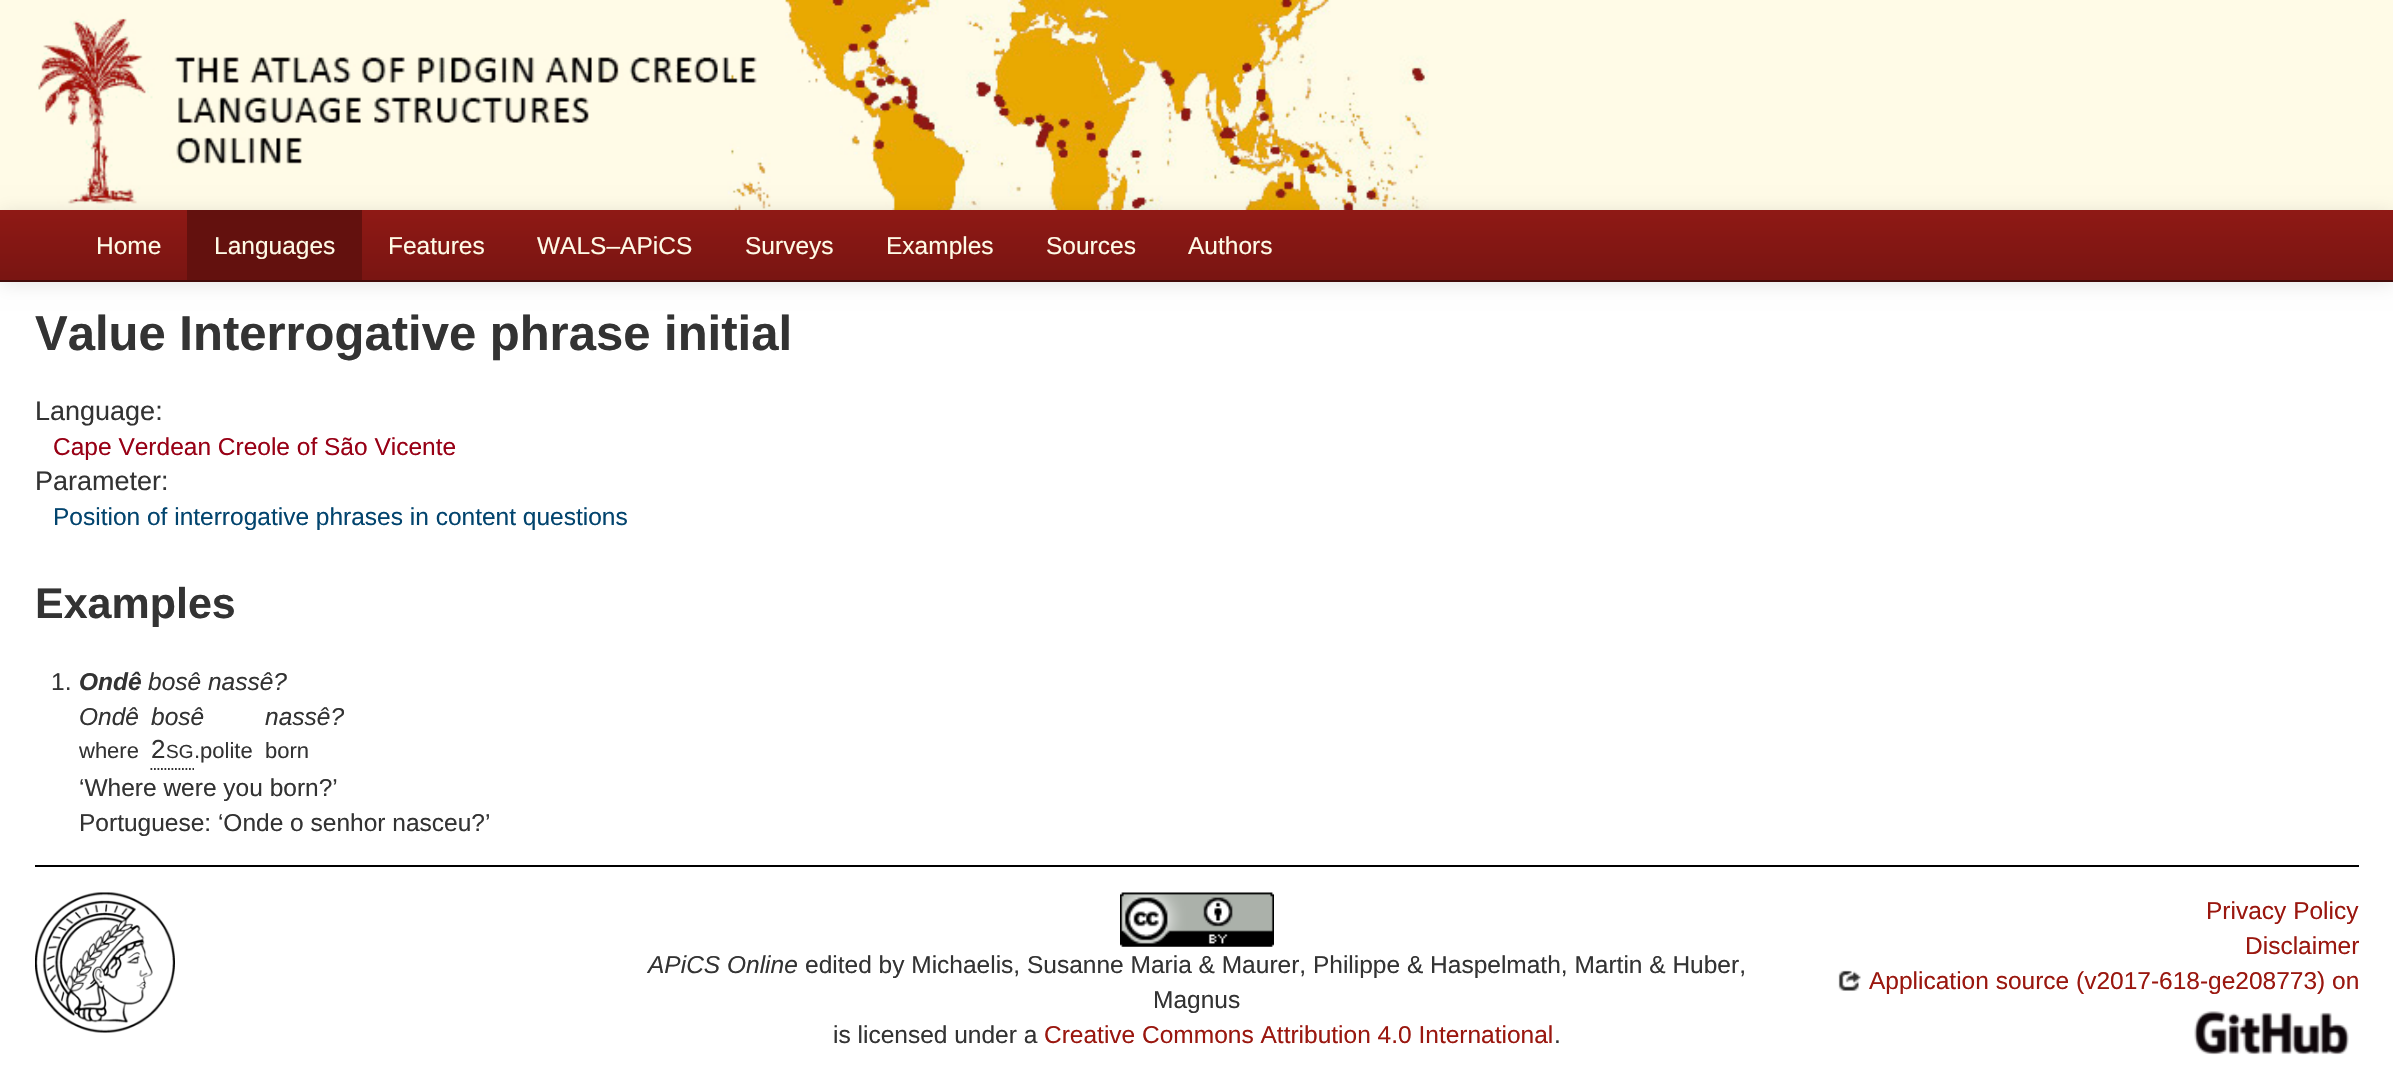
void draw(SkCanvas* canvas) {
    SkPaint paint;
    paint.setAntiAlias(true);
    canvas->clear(0xFFFFFFFF);
    paint.setColor(0xFFFFFBE7);
    canvas->drawRect(SkRect::MakeXYWH(0, 0, 2393, 210), paint);
    canvas->drawImageRect(SkImages::DeferredFromEncodedData(SkData::MakeFromFileName("img1.png")), SkRect::MakeXYWH(36, 0, 1393, 210), SkSamplingOptions());
    paint.setColor(0x1A000000);
    paint.setMaskFilter(SkMaskFilter::MakeBlur(kNormal_SkBlurStyle, 9));
    canvas->drawRect(SkRect::MakeXYWH(0, 212, 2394, 72), paint);
    paint.setMaskFilter(nullptr);
    {
        const SkColor colors[] = {0xFF8F1915, 0xFF791512};
        const float stops[] = {0, 1};
        const SkPoint ends[] = {{1197, 210}, {1197, 280}};
        paint.setShader(SkGradientShader::MakeLinear(ends, colors, stops, 2, SkTileMode::kClamp));
        paint.setAlpha(255);
    }
    canvas->drawRect(SkRect::MakeXYWH(0, 210, 2393, 70), paint);
    paint.setShader(nullptr);
    paint.setColor(0xFF430C0A);
    canvas->drawRect(SkRect::MakeXYWH(0, 280, 2393, 2), paint);
    SkFont font1(fontMgr->matchFamilyStyle("Liberation Sans", SkFontStyle::Normal()), 24.5f);
    font1.setSubpixel(true);
    paint.setColor(0xFFFFFAE6);
    canvas->drawString("Home", 96, 254, font1, paint);
    paint.setColor(0xFF63110E);
    canvas->drawRect(SkRect::MakeXYWH(187, 210, 175, 70), paint);
    paint.setColor(0xFFFFFAE6);
    canvas->drawString("Languages", 214, 254, font1, paint);
    canvas->drawString("Features", 388, 254, font1, paint);
    canvas->drawString("WALS–APiCS", 537, 254, font1, paint);
    canvas->drawString("Surveys", 745, 254, font1, paint);
    canvas->drawString("Examples", 886, 254, font1, paint);
    canvas->drawString("Sources", 1046, 254, font1, paint);
    canvas->drawString("Authors", 1188, 254, font1, paint);
    SkFont font2(fontMgr->matchFamilyStyle("Liberation Sans", SkFontStyle::Bold()), 49);
    font2.setSubpixel(true);
    paint.setColor(0xFF333333);
    canvas->drawString("Value Interrogative phrase initial", 35, 350, font2, paint);
    SkFont font3(fontMgr->matchFamilyStyle("Liberation Sans", SkFontStyle::Normal()), 27);
    font3.setSubpixel(true);
    canvas->drawString("Language:", 35, 420, font3, paint);
    paint.setColor(0xFF980015);
    canvas->drawString("Cape Verdean Creole of São Vicente", 53, 455, font1, paint);
    paint.setColor(0xFF333333);
    canvas->drawString("Parameter:", 35, 490, font3, paint);
    paint.setColor(0xFF02446E);
    canvas->drawString("Position of interrogative phrases in content questions", 53, 525, font1, paint);
    SkFont font4(fontMgr->matchFamilyStyle("Liberation Sans", SkFontStyle::Bold()), 43);
    font4.setSubpixel(true);
    paint.setColor(0xFF333333);
    canvas->drawString("Examples", 35, 618, font4, paint);
    canvas->drawString("1.", 51, 690, font1, paint);
    SkFont font5(fontMgr->matchFamilyStyle("Liberation Sans", SkFontStyle::BoldItalic()), 24.5f);
    font5.setSubpixel(true);
    canvas->drawString("Ondê", 79, 690, font5, paint);
    SkFont font6(fontMgr->matchFamilyStyle("Liberation Sans", SkFontStyle::Italic()), 24.5f);
    font6.setSubpixel(true);
    canvas->drawString("bosê nassê?", 148, 690, font6, paint);
    canvas->drawString("Ondê", 79, 725, font6, paint);
    SkFont font7(fontMgr->matchFamilyStyle("Liberation Sans", SkFontStyle::Normal()), 22);
    font7.setSubpixel(true);
    canvas->drawString("where", 79, 758, font7, paint);
    canvas->drawString("bosê", 151, 725, font6, paint);
    paint.setStyle(SkPaint::kStroke_Style);
    paint.setStrokeWidth(1.8f);
    paint.setPathEffect(SkDashPathEffect::Make({{1.75f, 1.75f}}, 0));
    canvas->drawPath(SkPathBuilder().moveTo(150.5f, 769).lineTo(194, 769).detach(), paint);
    paint.setPathEffect(nullptr);
    SkFont font8(fontMgr->matchFamilyStyle("Liberation Sans", SkFontStyle::Normal()), 26);
    font8.setSubpixel(true);
    paint.setStyle(SkPaint::kFill_Style);
    canvas->drawString("2", 151, 758, font8, paint);
    SkFont font9(fontMgr->matchFamilyStyle("Liberation Sans", SkFontStyle::Normal()), 19);
    font9.setSubpixel(true);
    canvas->drawString("SG", 166, 758, font9, paint);
    canvas->drawString(".polite", 194, 758, font7, paint);
    canvas->drawString("nassê?", 265, 725, font6, paint);
    canvas->drawString("born", 265, 758, font7, paint);
    canvas->drawString("‘Where were you born?’", 79, 796, font1, paint);
    canvas->drawString("Portuguese: ‘Onde o senhor nasceu?’", 79, 831, font1, paint);
    paint.setColor(0xFF000000);
    canvas->drawRect(SkRect::MakeXYWH(35, 865, 2324, 2), paint);
    canvas->drawImageRect(SkImages::DeferredFromEncodedData(SkData::MakeFromFileName("img2.png")), SkRect::MakeXYWH(35, 892, 140, 141), SkSamplingOptions());
    canvas->drawImageRect(SkImages::DeferredFromEncodedData(SkData::MakeFromFileName("img3.png")), SkRect::MakeXYWH(1120, 892, 154, 55), SkSamplingOptions());
    paint.setColor(0xFF333333);
    canvas->drawString("APiCS Online", 648, 973, font6, paint);
    canvas->drawString("edited by Michaelis, Susanne Maria & Maurer, Philippe & Haspelmath, Martin & Huber,", 805, 973, font1, paint);
    canvas->drawString("Magnus", 1153, 1008, font1, paint);
    canvas->drawString("is licensed under a", 833, 1043, font1, paint);
    paint.setColor(0xFF9A170F);
    canvas->drawString("Creative Commons Attribution 4.0 International", 1044, 1043, font1, paint);
    paint.setColor(0xFF333333);
    canvas->drawString(".", 1554, 1043, font1, paint);
    paint.setColor(0xFF9A170F);
    canvas->drawString("Privacy Policy", 2206, 919, font1, paint);
    canvas->drawString("Disclaimer", 2245, 954, font1, paint);
    canvas->drawImageRect(SkImages::DeferredFromEncodedData(SkData::MakeFromFileName("img4.png")), SkRect::MakeXYWH(1838, 970, 23, 21), SkSamplingOptions());
    canvas->drawString("Application source (v2017-618-ge208773) on", 1869, 989, font1, paint);
    canvas->drawImageRect(SkImages::DeferredFromEncodedData(SkData::MakeFromFileName("img5.png")), SkRect::MakeXYWH(2194, 1011, 155, 44), SkSamplingOptions());
}
